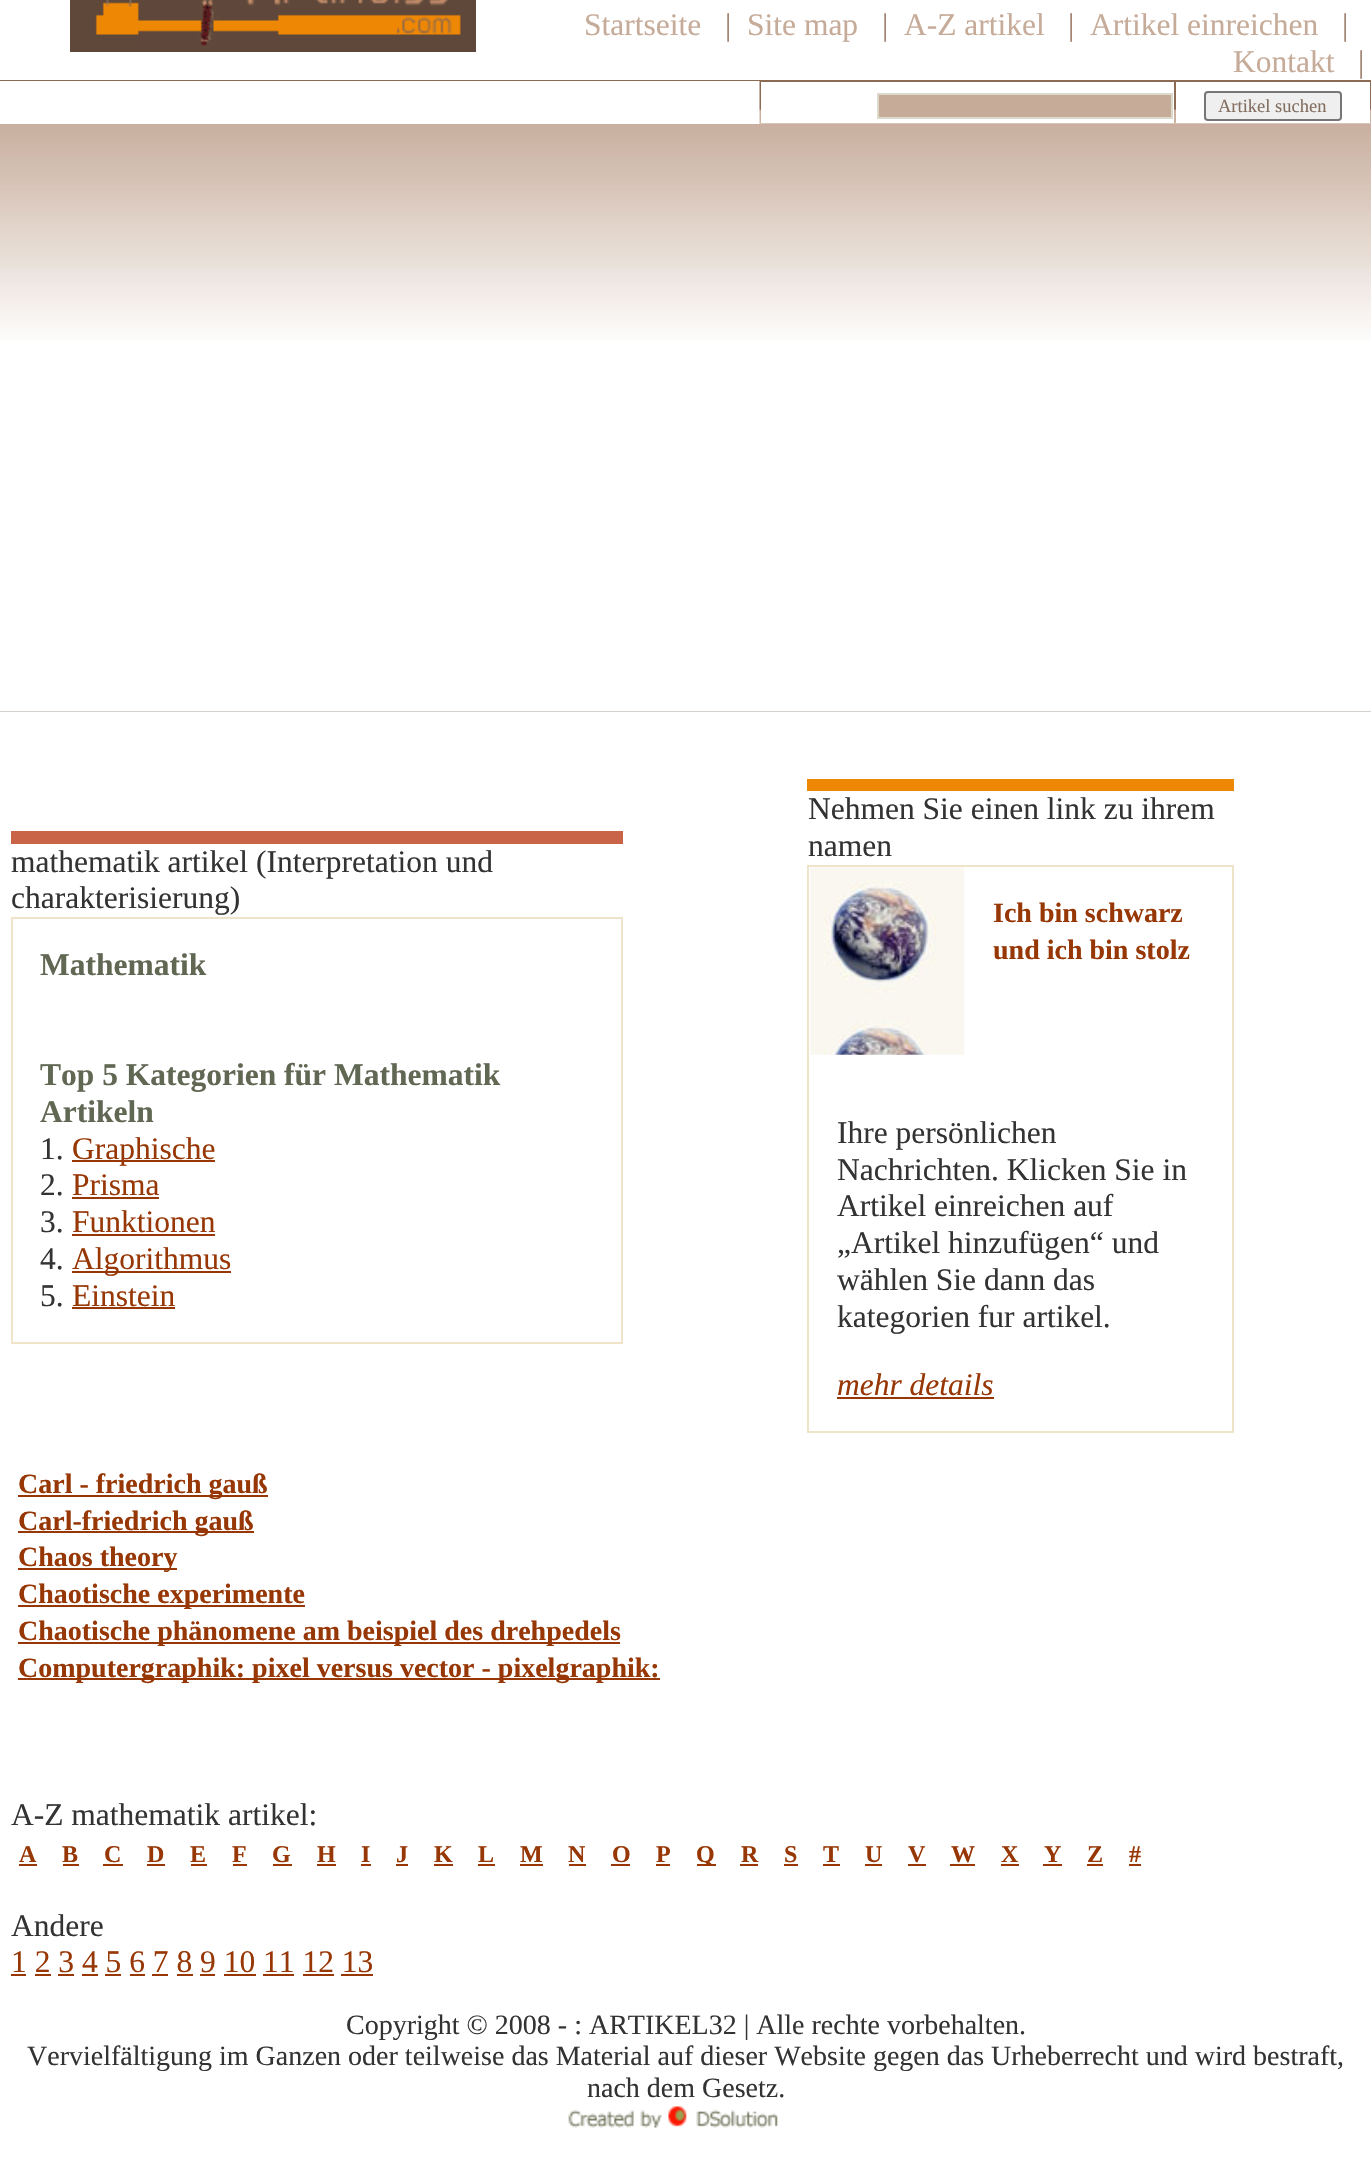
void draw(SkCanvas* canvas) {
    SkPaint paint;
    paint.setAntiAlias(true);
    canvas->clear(0xFFFFFFFF);
    canvas->drawImageRect(SkImages::DeferredFromEncodedData(SkData::MakeFromFileName("img1.png")), SkRect::MakeXYWH(0, 124, 1371, 216), SkSamplingOptions());
    canvas->drawImageRect(SkImages::DeferredFromEncodedData(SkData::MakeFromFileName("img2.png")), SkRect::MakeXYWH(70, 0, 406, 52), SkSamplingOptions());
    SkFont font1(fontMgr->matchFamilyStyle("Liberation Serif", SkFontStyle::Normal()), 31.5f);
    font1.setSubpixel(true);
    paint.setColor(0xFFC6AB99);
    canvas->drawString("Startseite", 584, 35, font1, paint);
    paint.setColor(0xFFA0816F);
    canvas->drawString("|", 725, 35, font1, paint);
    paint.setColor(0xFFC6AB99);
    canvas->drawString("Site map", 747, 35, font1, paint);
    paint.setColor(0xFFA0816F);
    canvas->drawString("|", 882, 35, font1, paint);
    paint.setColor(0xFFC6AB99);
    canvas->drawString("A-Z artikel", 904, 35, font1, paint);
    paint.setColor(0xFFA0816F);
    canvas->drawString("|", 1068, 35, font1, paint);
    paint.setColor(0xFFC6AB99);
    canvas->drawString("Artikel einreichen", 1090, 35, font1, paint);
    paint.setColor(0xFFA0816F);
    canvas->drawString("|", 1342, 35, font1, paint);
    paint.setColor(0xFFC6AB99);
    canvas->drawString("Kontakt", 1233, 72, font1, paint);
    paint.setColor(0xFFA0816F);
    canvas->drawString("|", 1358, 72, font1, paint);
    canvas->drawImageRect(SkImages::DeferredFromEncodedData(SkData::MakeFromFileName("img3.png")), SkRect::MakeXYWH(0, 80, 1371, 1), SkSamplingOptions());
    canvas->drawImageRect(SkImages::DeferredFromEncodedData(SkData::MakeFromFileName("img4.png")), SkRect::MakeXYWH(759, 81, 612, 43), SkSamplingOptions());
    paint.setColor(0xFFFFFFFF);
    canvas->drawRect(SkRect::MakeXYWH(761, 82, 413, 41), paint);
    paint.setColor(0xFFC6AB99);
    canvas->drawRect(SkRect::MakeXYWH(878, 94, 294, 24), paint);
    paint.setStyle(SkPaint::kStroke_Style);
    paint.setStrokeWidth(2);
    paint.setColor(0xFFDCDACB);
    canvas->drawRect(SkRect::MakeXYWH(878, 94, 294, 24), paint);
    paint.setStyle(SkPaint::kFill_Style);
    paint.setColor(0xFFFFFFFF);
    canvas->drawRect(SkRect::MakeXYWH(1176, 82, 194, 41), paint);
    paint.setColor(0xFFEFEFEF);
    canvas->drawRoundRect(SkRect::MakeXYWH(1205, 92, 136, 28), 3, 3, paint);
    paint.setStyle(SkPaint::kStroke_Style);
    paint.setColor(0xFF767676);
    canvas->drawRoundRect(SkRect::MakeXYWH(1205, 92, 136, 28), 3, 3, paint);
    SkFont font2(fontMgr->matchFamilyStyle("Liberation Serif", SkFontStyle::Normal()), 18.5f);
    font2.setSubpixel(true);
    paint.setStyle(SkPaint::kFill_Style);
    paint.setColor(0xFF826D5F);
    canvas->drawString("Artikel suchen", 1218, 112, font2, paint);
    canvas->drawImageRect(SkImages::DeferredFromEncodedData(SkData::MakeFromFileName("img5.png")), SkRect::MakeXYWH(0, 711, 1371, 1), SkSamplingOptions());
    paint.setColor(0xFFC96448);
    canvas->drawRect(SkRect::MakeXYWH(11, 831, 612, 13), paint);
    paint.setColor(0xFF333333);
    canvas->drawString("mathematik artikel (Interpretation und", 11, 872, font1, paint);
    canvas->drawString("charakterisierung)", 11, 908, font1, paint);
    paint.setStyle(SkPaint::kStroke_Style);
    paint.setColor(0xFFEFE4CA);
    canvas->drawRect(SkRect::MakeXYWH(12, 918, 610, 425), paint);
    SkFont font3(fontMgr->matchFamilyStyle("Liberation Serif", SkFontStyle::Bold()), 31.5f);
    font3.setSubpixel(true);
    paint.setStyle(SkPaint::kFill_Style);
    paint.setColor(0xFF606752);
    canvas->drawString("Mathematik", 40, 975, font3, paint);
    canvas->drawString("Top 5 Kategorien für Mathematik", 40, 1085, font3, paint);
    canvas->drawString("Artikeln", 40, 1122, font3, paint);
    paint.setColor(0xFF333333);
    canvas->drawString("1.", 40, 1159, font1, paint);
    paint.setColor(0xFF973705);
    canvas->drawRect(SkRect::MakeXYWH(72, 1160, 143, 2), paint);
    canvas->drawString("Graphische", 72, 1159, font1, paint);
    paint.setColor(0xFF333333);
    canvas->drawString("2.", 40, 1195, font1, paint);
    paint.setColor(0xFF973705);
    canvas->drawString("Prisma", 72, 1195, font1, paint);
    canvas->drawRect(SkRect::MakeXYWH(72, 1197, 87, 2), paint);
    paint.setColor(0xFF333333);
    canvas->drawString("3.", 40, 1232, font1, paint);
    paint.setColor(0xFF973705);
    canvas->drawString("Funktionen", 72, 1232, font1, paint);
    canvas->drawRect(SkRect::MakeXYWH(72, 1234, 143, 2), paint);
    paint.setColor(0xFF333333);
    canvas->drawString("4.", 40, 1269, font1, paint);
    paint.setColor(0xFF973705);
    canvas->drawRect(SkRect::MakeXYWH(72, 1271, 159, 2), paint);
    canvas->drawString("Algorithmus", 72, 1269, font1, paint);
    paint.setColor(0xFF333333);
    canvas->drawString("5.", 40, 1306, font1, paint);
    paint.setColor(0xFF973705);
    canvas->drawString("Einstein", 72, 1306, font1, paint);
    canvas->drawRect(SkRect::MakeXYWH(72, 1307, 103, 2), paint);
    paint.setColor(0xFFEE8704);
    canvas->drawRect(SkRect::MakeXYWH(807, 779, 427, 12), paint);
    paint.setColor(0xFF333333);
    canvas->drawString("Nehmen Sie einen link zu ihrem", 808, 819, font1, paint);
    canvas->drawString("namen", 808, 856, font1, paint);
    paint.setStyle(SkPaint::kStroke_Style);
    paint.setColor(0xFFEFE4CA);
    canvas->drawRect(SkRect::MakeXYWH(808, 866, 425, 566), paint);
    canvas->drawImageRect(SkImages::DeferredFromEncodedData(SkData::MakeFromFileName("img6.png")), SkRect::MakeXYWH(810, 867, 155, 188), SkSamplingOptions());
    SkFont font4(fontMgr->matchFamilyStyle("Liberation Serif", SkFontStyle::Bold()), 28);
    font4.setSubpixel(true);
    paint.setStyle(SkPaint::kFill_Style);
    paint.setColor(0xFF973705);
    canvas->drawString("Ich bin schwarz", 993, 922, font4, paint);
    canvas->drawString("und ich bin stolz", 993, 959, font4, paint);
    paint.setColor(0xFF333333);
    canvas->drawString("Ihre persönlichen", 837, 1143, font1, paint);
    canvas->drawString("Nachrichten. Klicken Sie in", 837, 1180, font1, paint);
    canvas->drawString("Artikel einreichen auf", 837, 1216, font1, paint);
    canvas->drawString("„Artikel hinzufügen“ und", 837, 1253, font1, paint);
    canvas->drawString("wählen Sie dann das", 837, 1290, font1, paint);
    canvas->drawString("kategorien fur artikel.", 837, 1327, font1, paint);
    SkFont font5(fontMgr->matchFamilyStyle("Liberation Serif", SkFontStyle::Italic()), 31.5f);
    font5.setSubpixel(true);
    paint.setColor(0xFF973705);
    canvas->drawString("mehr details", 837, 1395, font5, paint);
    canvas->drawRect(SkRect::MakeXYWH(837, 1397, 157, 2), paint);
    canvas->drawRect(SkRect::MakeXYWH(18, 1495, 250, 2), paint);
    canvas->drawString("Carl - friedrich gauß", 18, 1493, font4, paint);
    canvas->drawRect(SkRect::MakeXYWH(18, 1531, 236, 2), paint);
    canvas->drawString("Carl-friedrich gauß", 18, 1530, font4, paint);
    canvas->drawRect(SkRect::MakeXYWH(18, 1568, 159, 2), paint);
    canvas->drawString("Chaos theory", 18, 1566, font4, paint);
    canvas->drawRect(SkRect::MakeXYWH(18, 1605, 287, 2), paint);
    canvas->drawString("Chaotische experimente", 18, 1603, font4, paint);
    canvas->drawRect(SkRect::MakeXYWH(18, 1642, 602, 2), paint);
    canvas->drawString("Chaotische phänomene am beispiel des drehpedels", 18, 1640, font4, paint);
    canvas->drawRect(SkRect::MakeXYWH(18, 1678, 642, 2), paint);
    canvas->drawString("Computergraphik: pixel versus vector - pixelgraphik:", 18, 1677, font4, paint);
    paint.setColor(0xFF333333);
    canvas->drawString("A-Z mathematik artikel:", 11, 1825, font1, paint);
    SkFont font6(fontMgr->matchFamilyStyle("Liberation Serif", SkFontStyle::Bold()), 24);
    font6.setSubpixel(true);
    paint.setColor(0xFF973705);
    canvas->drawString("A", 19, 1862, font6, paint);
    canvas->drawRect(SkRect::MakeXYWH(19, 1864, 18, 2), paint);
    canvas->drawString("B", 62, 1862, font6, paint);
    canvas->drawRect(SkRect::MakeXYWH(63, 1864, 16, 2), paint);
    canvas->drawString("C", 104, 1862, font6, paint);
    canvas->drawRect(SkRect::MakeXYWH(103, 1864, 20, 2), paint);
    canvas->drawString("D", 147, 1862, font6, paint);
    canvas->drawRect(SkRect::MakeXYWH(147, 1864, 18, 2), paint);
    canvas->drawString("E", 190, 1862, font6, paint);
    canvas->drawRect(SkRect::MakeXYWH(191, 1864, 16, 2), paint);
    canvas->drawString("F", 232, 1862, font6, paint);
    canvas->drawRect(SkRect::MakeXYWH(233, 1864, 14, 2), paint);
    canvas->drawString("G", 272, 1862, font6, paint);
    canvas->drawRect(SkRect::MakeXYWH(273, 1864, 19, 2), paint);
    canvas->drawString("H", 317, 1862, font6, paint);
    canvas->drawRect(SkRect::MakeXYWH(317, 1864, 19, 2), paint);
    canvas->drawString("I", 361, 1862, font6, paint);
    canvas->drawRect(SkRect::MakeXYWH(361, 1864, 10, 2), paint);
    canvas->drawString("J", 396, 1862, font6, paint);
    canvas->drawRect(SkRect::MakeXYWH(396, 1864, 12, 2), paint);
    canvas->drawString("K", 434, 1862, font6, paint);
    canvas->drawRect(SkRect::MakeXYWH(434, 1864, 19, 2), paint);
    canvas->drawString("L", 478, 1862, font6, paint);
    canvas->drawRect(SkRect::MakeXYWH(478, 1864, 17, 2), paint);
    canvas->drawString("M", 520, 1862, font6, paint);
    canvas->drawRect(SkRect::MakeXYWH(520, 1864, 23, 2), paint);
    canvas->drawString("N", 568, 1862, font6, paint);
    canvas->drawRect(SkRect::MakeXYWH(569, 1864, 17, 2), paint);
    canvas->drawString("O", 612, 1862, font6, paint);
    canvas->drawRect(SkRect::MakeXYWH(611, 1864, 19, 2), paint);
    canvas->drawString("P", 656, 1862, font6, paint);
    canvas->drawRect(SkRect::MakeXYWH(656, 1864, 14, 2), paint);
    canvas->drawRect(SkRect::MakeXYWH(697, 1864, 19, 2), paint);
    canvas->drawString("Q", 696, 1862, font6, paint);
    canvas->drawString("R", 741, 1862, font6, paint);
    canvas->drawRect(SkRect::MakeXYWH(740, 1864, 18, 2), paint);
    canvas->drawString("S", 784, 1862, font6, paint);
    canvas->drawRect(SkRect::MakeXYWH(784, 1864, 14, 2), paint);
    canvas->drawString("T", 823, 1862, font6, paint);
    canvas->drawRect(SkRect::MakeXYWH(823, 1864, 17, 2), paint);
    canvas->drawString("U", 865, 1862, font6, paint);
    canvas->drawRect(SkRect::MakeXYWH(865, 1864, 17, 2), paint);
    canvas->drawString("V", 908, 1862, font6, paint);
    canvas->drawRect(SkRect::MakeXYWH(908, 1864, 18, 2), paint);
    canvas->drawString("W", 951, 1862, font6, paint);
    canvas->drawRect(SkRect::MakeXYWH(950, 1864, 25, 2), paint);
    canvas->drawString("X", 1001, 1862, font6, paint);
    canvas->drawRect(SkRect::MakeXYWH(1001, 1864, 18, 2), paint);
    canvas->drawString("Y", 1044, 1862, font6, paint);
    canvas->drawRect(SkRect::MakeXYWH(1043, 1864, 19, 2), paint);
    canvas->drawString("Z", 1087, 1862, font6, paint);
    canvas->drawRect(SkRect::MakeXYWH(1087, 1864, 16, 2), paint);
    canvas->drawString("#", 1129, 1862, font6, paint);
    canvas->drawRect(SkRect::MakeXYWH(1129, 1864, 12, 2), paint);
    paint.setColor(0xFF333333);
    canvas->drawString("Andere", 11, 1936, font1, paint);
    paint.setColor(0xFF973705);
    canvas->drawString("1 2 3 4 5 6 7 8 9 10 11 12 13", 11, 1972, font1, paint);
    canvas->drawRect(SkRect::MakeXYWH(11, 1974, 15, 2), paint);
    canvas->drawRect(SkRect::MakeXYWH(35, 1974, 16, 2), paint);
    canvas->drawRect(SkRect::MakeXYWH(58, 1974, 16, 2), paint);
    canvas->drawRect(SkRect::MakeXYWH(82, 1974, 16, 2), paint);
    canvas->drawRect(SkRect::MakeXYWH(105, 1974, 16, 2), paint);
    canvas->drawRect(SkRect::MakeXYWH(130, 1974, 15, 2), paint);
    canvas->drawRect(SkRect::MakeXYWH(152, 1974, 16, 2), paint);
    canvas->drawRect(SkRect::MakeXYWH(177, 1974, 16, 2), paint);
    canvas->drawRect(SkRect::MakeXYWH(200, 1974, 15, 2), paint);
    canvas->drawRect(SkRect::MakeXYWH(224, 1974, 32, 2), paint);
    canvas->drawRect(SkRect::MakeXYWH(263, 1974, 31, 2), paint);
    canvas->drawRect(SkRect::MakeXYWH(303, 1974, 31, 2), paint);
    canvas->drawRect(SkRect::MakeXYWH(341, 1974, 32, 2), paint);
    SkFont font7(fontMgr->matchFamilyStyle("Liberation Serif", SkFontStyle::Normal()), 28);
    font7.setSubpixel(true);
    paint.setColor(0xFF333333);
    canvas->drawString("Copyright © 2008 - : ARTIKEL32 | Alle rechte vorbehalten.", 346, 2034, font7, paint);
    canvas->drawString("Vervielfältigung im Ganzen oder teilweise das Material auf dieser Website gegen das Urheberrecht und wird bestraft,", 27, 2065, font7, paint);
    canvas->drawString("nach dem Gesetz.", 587, 2097, font7, paint);
    canvas->drawImageRect(SkImages::DeferredFromEncodedData(SkData::MakeFromFileName("img7.png")), SkRect::MakeXYWH(568, 2106, 210, 22), SkSamplingOptions());
}
